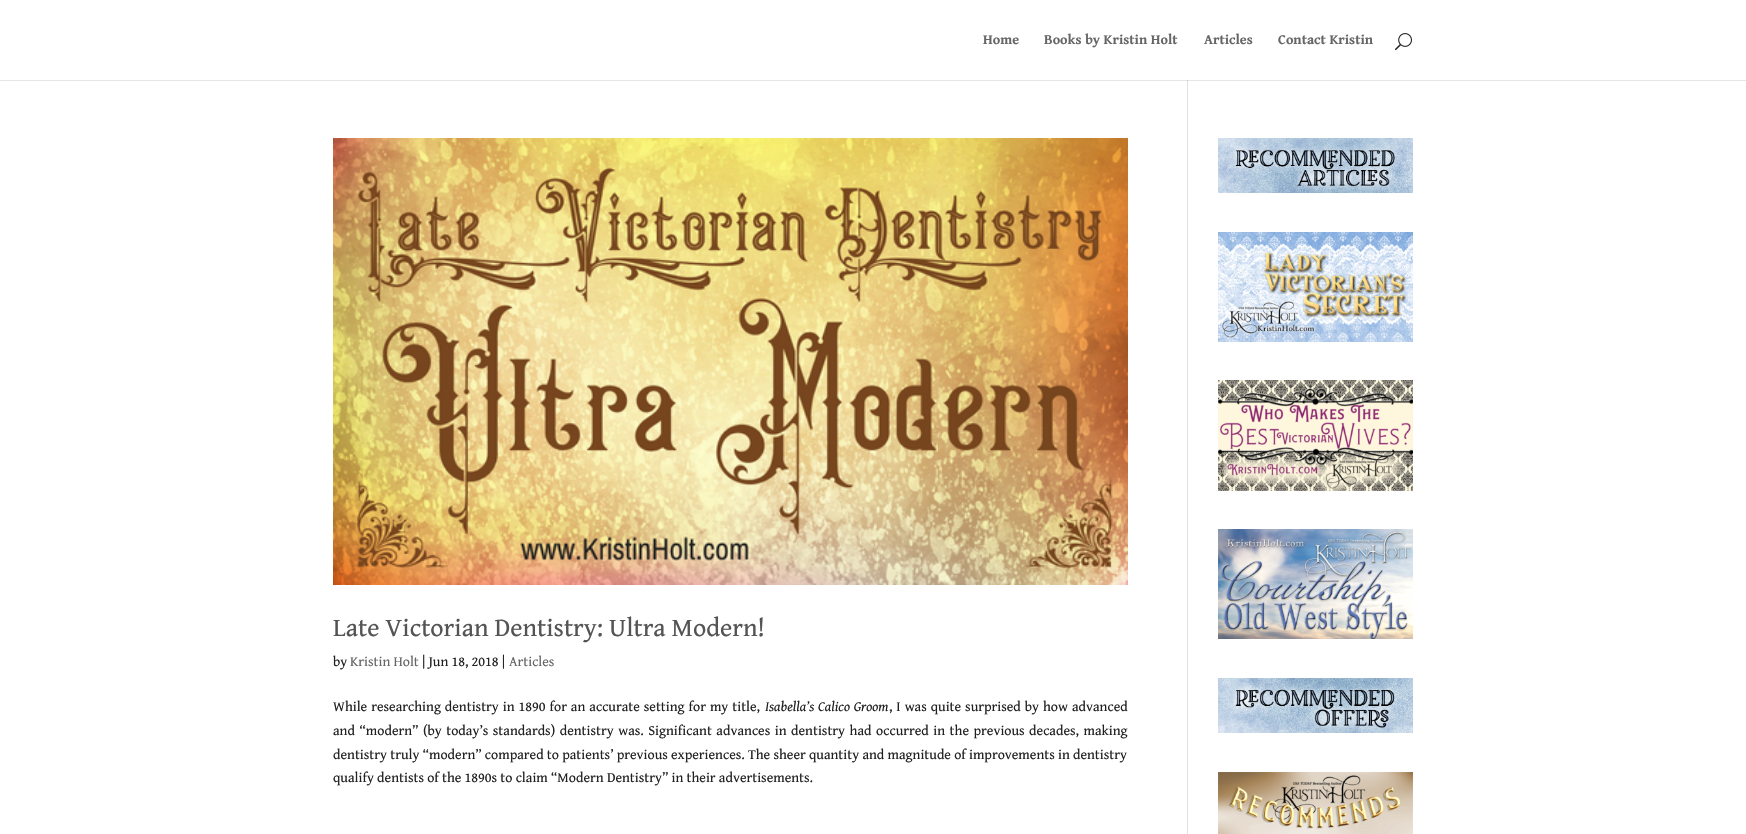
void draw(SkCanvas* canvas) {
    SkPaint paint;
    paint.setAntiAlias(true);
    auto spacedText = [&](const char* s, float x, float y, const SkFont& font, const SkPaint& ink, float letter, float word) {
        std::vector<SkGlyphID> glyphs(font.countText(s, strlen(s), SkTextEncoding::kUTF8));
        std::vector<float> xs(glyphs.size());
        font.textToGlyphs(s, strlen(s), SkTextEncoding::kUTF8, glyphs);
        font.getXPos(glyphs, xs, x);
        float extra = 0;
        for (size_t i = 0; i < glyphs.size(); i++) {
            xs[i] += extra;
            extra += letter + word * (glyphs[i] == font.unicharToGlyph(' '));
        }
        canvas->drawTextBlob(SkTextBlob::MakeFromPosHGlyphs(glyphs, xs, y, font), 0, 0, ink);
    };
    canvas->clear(0xFFFFFFFF);
    paint.setColor(0xFFE6E6E6);
    canvas->drawRect(SkRect::MakeXYWH(0, 80, 1746, 1), paint);
    SkFont font1(fontMgr->matchFamilyStyle("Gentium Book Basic", SkFontStyle::Bold()), 14);
    font1.setSubpixel(true);
    paint.setColor(0xFF666666);
    canvas->drawString("Home", 983, 44, font1, paint);
    canvas->drawString("Books by Kristin Holt", 1044, 44, font1, paint);
    canvas->drawString("Articles", 1204, 44, font1, paint);
    canvas->drawString("Contact Kristin", 1278, 44, font1, paint);
    canvas->drawImageRect(SkImages::DeferredFromEncodedData(SkData::MakeFromFileName("img1.png")), SkRect::MakeXYWH(1395, 33, 17, 18), SkSamplingOptions());
    canvas->drawImageRect(SkImages::DeferredFromEncodedData(SkData::MakeFromFileName("img2.png")), SkRect::MakeXYWH(333, 138, 795, 447), SkSamplingOptions());
    SkFont font2(fontMgr->matchFamilyStyle("Gentium Book Basic", SkFontStyle::Normal()), 26);
    font2.setSubpixel(true);
    paint.setColor(0xFF545454);
    canvas->drawString("Late Victorian Dentistry: Ultra Modern!", 333, 636, font2, paint);
    SkFont font3(fontMgr->matchFamilyStyle("Gentium Book Basic", SkFontStyle::Normal()), 14);
    font3.setSubpixel(true);
    paint.setColor(0xFF212121);
    canvas->drawString("by", 333, 666, font3, paint);
    paint.setColor(0xFF666666);
    canvas->drawString("Kristin Holt", 350, 666, font3, paint);
    paint.setColor(0xFF212121);
    canvas->drawString("| Jun 18, 2018 |", 422, 666, font3, paint);
    paint.setColor(0xFF666666);
    canvas->drawString("Articles", 509, 666, font3, paint);
    paint.setColor(0xFF212121);
    spacedText("While researching dentistry in 1890 for an accurate setting for my title,", 333, 711, font3, paint, 0, 0.75f);
    SkFont font4(fontMgr->matchFamilyStyle("Gentium Book Basic", SkFontStyle::Italic()), 14);
    font4.setSubpixel(true);
    spacedText("Isabella’s Calico Groom", 765, 711, font4, paint, 0, 0.75f);
    spacedText(", I was quite surprised by how advanced", 889, 711, font3, paint, 0, 0.75f);
    spacedText("and “modern” (by today’s standards) dentistry was. Significant advances in dentistry had occurred in the previous decades, making", 333, 735, font3, paint, 0, 1.3f);
    canvas->drawString("dentistry truly “modern” compared to patients’ previous experiences. The sheer quantity and magnitude of improvements in dentistry", 333, 759, font3, paint);
    canvas->drawString("qualify dentists of the 1890s to claim “Modern Dentistry” in their advertisements.", 333, 782, font3, paint);
    canvas->drawImageRect(SkImages::DeferredFromEncodedData(SkData::MakeFromFileName("img3.png")), SkRect::MakeXYWH(1218, 138, 195, 55), SkSamplingOptions());
    canvas->drawImageRect(SkImages::DeferredFromEncodedData(SkData::MakeFromFileName("img4.png")), SkRect::MakeXYWH(1218, 232, 195, 110), SkSamplingOptions());
    canvas->drawImageRect(SkImages::DeferredFromEncodedData(SkData::MakeFromFileName("img5.png")), SkRect::MakeXYWH(1218, 380, 195, 111), SkSamplingOptions());
    canvas->drawImageRect(SkImages::DeferredFromEncodedData(SkData::MakeFromFileName("img6.png")), SkRect::MakeXYWH(1218, 529, 195, 110), SkSamplingOptions());
    canvas->drawImageRect(SkImages::DeferredFromEncodedData(SkData::MakeFromFileName("img7.png")), SkRect::MakeXYWH(1218, 678, 195, 55), SkSamplingOptions());
    canvas->drawImageRect(SkImages::DeferredFromEncodedData(SkData::MakeFromFileName("img8.png")), SkRect::MakeXYWH(1218, 772, 195, 62), SkSamplingOptions());
    paint.setColor(0xFFE2E2E2);
    canvas->drawRect(SkRect::MakeXYWH(1187, 80, 1, 754), paint);
    paint.setColor(0xFFCBCBCB);
    canvas->drawRect(SkRect::MakeXYWH(1187, 80, 1, 1), paint);
}
